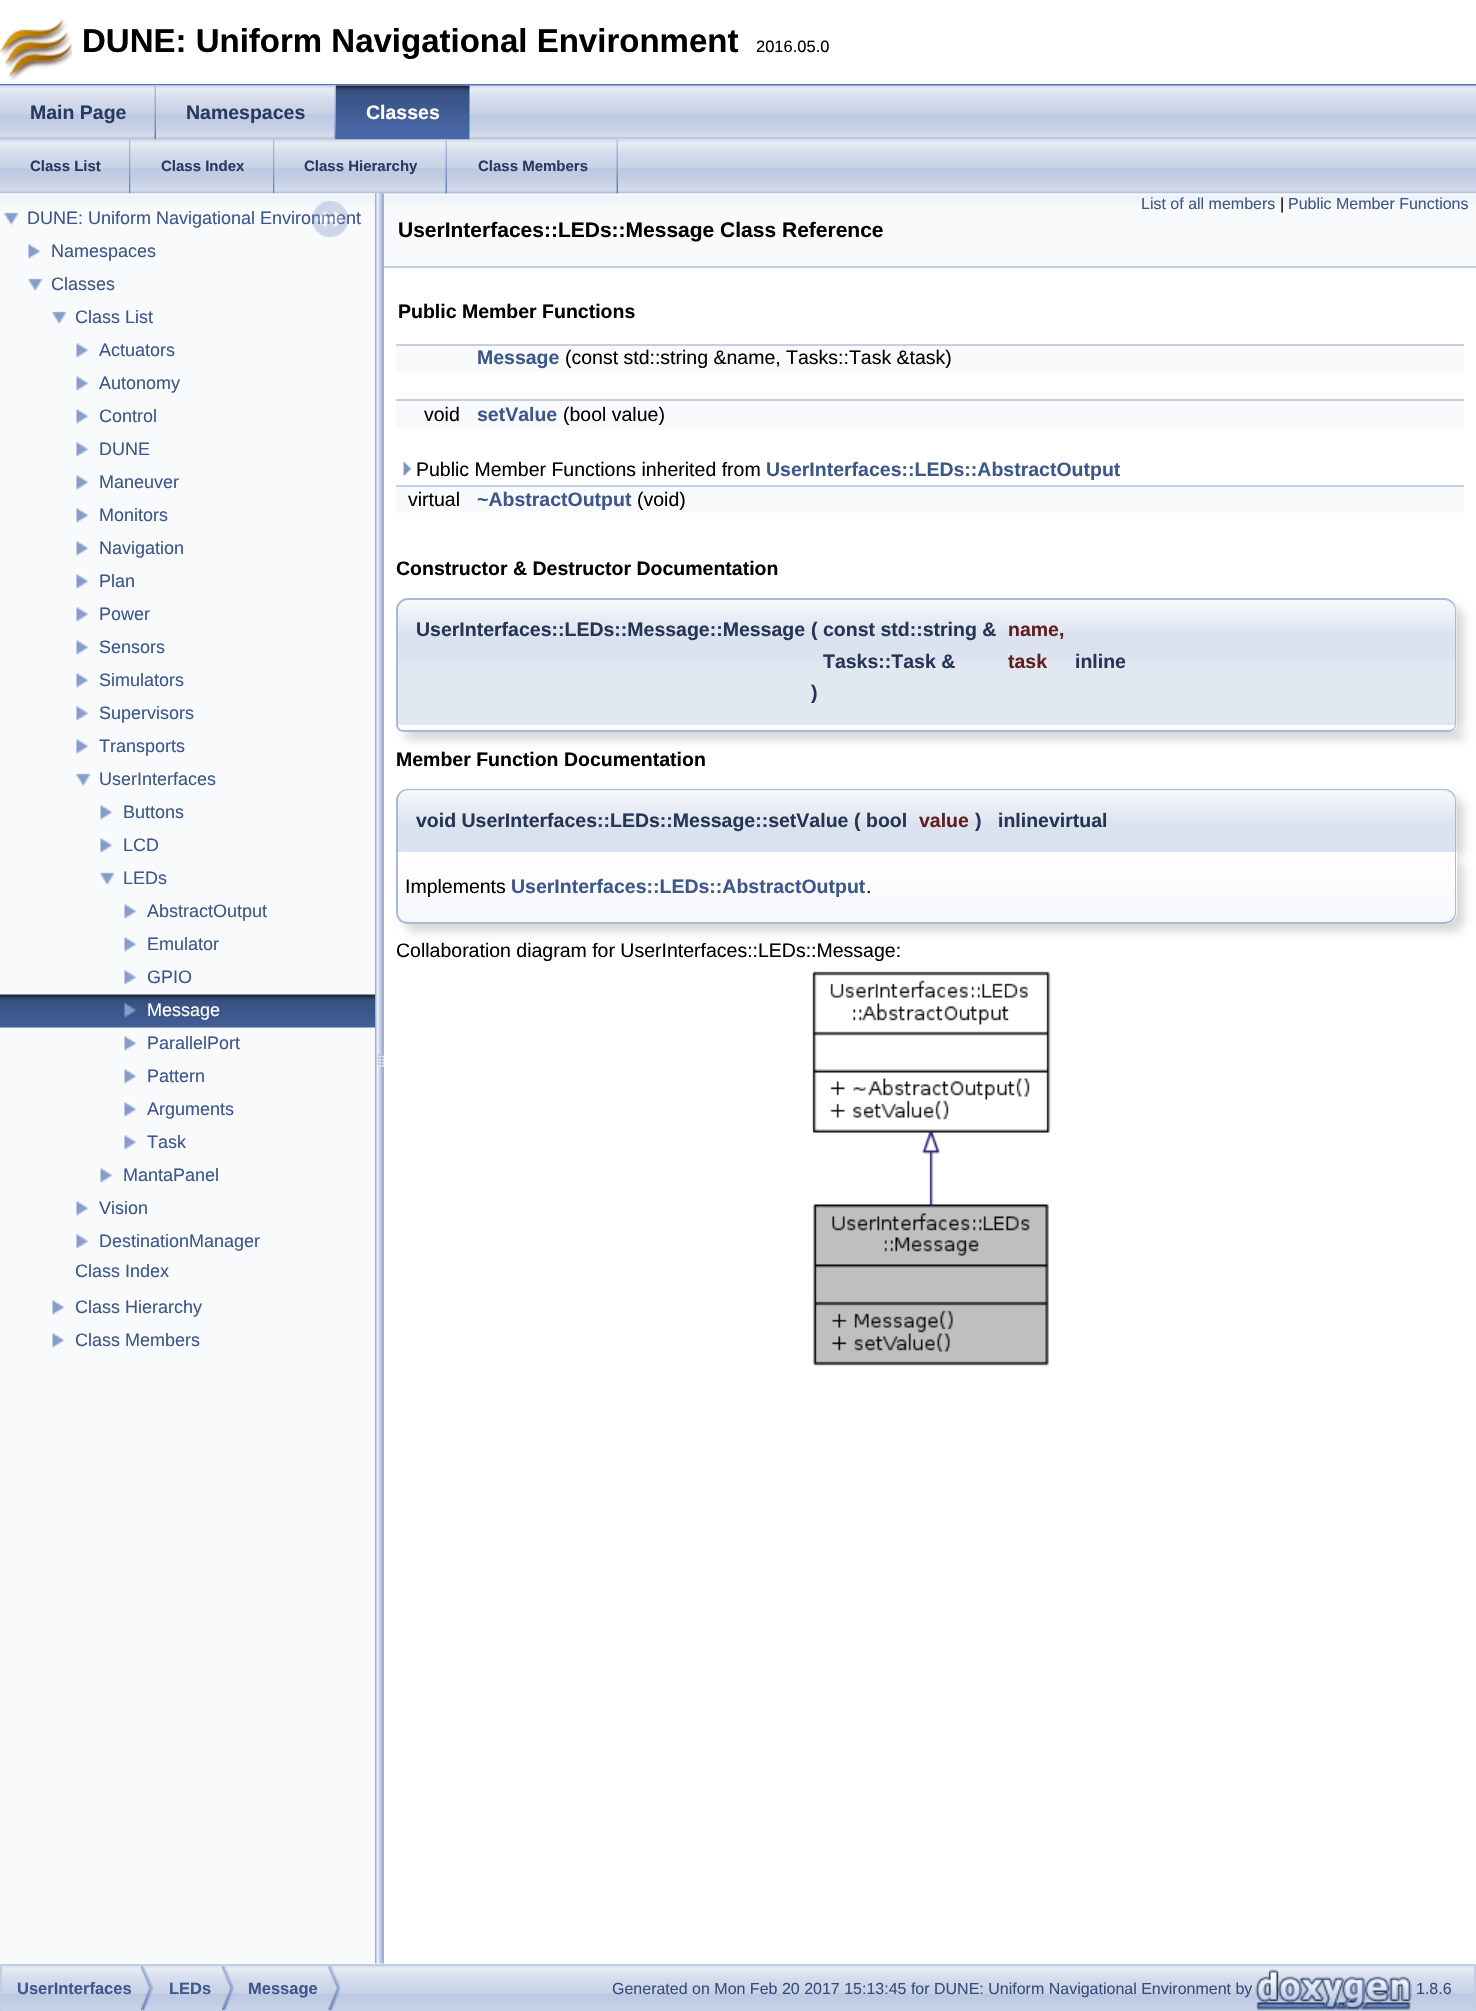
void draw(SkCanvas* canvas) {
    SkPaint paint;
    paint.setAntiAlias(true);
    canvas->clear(0xFFFFFFFF);
    paint.setColor(0xFF5373B4);
    canvas->drawRect(SkRect::MakeXYWH(0, 84, 1476, 2), paint);
    canvas->drawImageRect(SkImages::DeferredFromEncodedData(SkData::MakeFromFileName("img1.png")), SkRect::MakeXYWH(0, 19, 72, 61), SkSamplingOptions());
    SkFont font1(fontMgr->matchFamilyStyle("Liberation Sans", SkFontStyle::Bold()), 33);
    font1.setSubpixel(true);
    paint.setColor(0xFF000000);
    canvas->drawString("DUNE: Uniform Navigational Environment", 82, 52, font1, paint);
    SkFont font2(fontMgr->matchFamilyStyle("Liberation Sans", SkFontStyle::Normal()), 16.5f);
    font2.setSubpixel(true);
    canvas->drawString("2016.05.0", 756, 52, font2, paint);
    canvas->drawImageRect(SkImages::DeferredFromEncodedData(SkData::MakeFromFileName("img2.png")), SkRect::MakeXYWH(0, 85, 1476, 55), SkSamplingOptions());
    canvas->drawImageRect(SkImages::DeferredFromEncodedData(SkData::MakeFromFileName("img3.png")), SkRect::MakeXYWH(0, 85, 156, 55), SkSamplingOptions());
    canvas->drawImageRect(SkImages::DeferredFromEncodedData(SkData::MakeFromFileName("img4.png")), SkRect::MakeXYWH(154, 86, 2, 54), SkSamplingOptions());
    SkFont font3(fontMgr->matchFamilyStyle("Liberation Sans", SkFontStyle::Bold()), 19.5f);
    font3.setSubpixel(true);
    paint.setColor(0xFF283A5D);
    canvas->drawString("Main Page", 30, 119, font3, paint);
    canvas->drawImageRect(SkImages::DeferredFromEncodedData(SkData::MakeFromFileName("img5.png")), SkRect::MakeXYWH(156, 85, 180, 55), SkSamplingOptions());
    canvas->drawImageRect(SkImages::DeferredFromEncodedData(SkData::MakeFromFileName("img4.png")), SkRect::MakeXYWH(334, 86, 2, 54), SkSamplingOptions());
    canvas->drawString("Namespaces", 186, 119, font3, paint);
    canvas->drawImageRect(SkImages::DeferredFromEncodedData(SkData::MakeFromFileName("img6.png")), SkRect::MakeXYWH(336, 85, 134, 55), SkSamplingOptions());
    canvas->drawImageRect(SkImages::DeferredFromEncodedData(SkData::MakeFromFileName("img7.png")), SkRect::MakeXYWH(336, 85, 134, 55), SkSamplingOptions());
    paint.setColor(0xFFFFFFFF);
    canvas->drawString("Classes", 366, 119, font3, paint);
    canvas->drawImageRect(SkImages::DeferredFromEncodedData(SkData::MakeFromFileName("img8.png")), SkRect::MakeXYWH(0, 140, 1476, 54), SkSamplingOptions());
    canvas->drawImageRect(SkImages::DeferredFromEncodedData(SkData::MakeFromFileName("img9.png")), SkRect::MakeXYWH(0, 139, 131, 55), SkSamplingOptions());
    canvas->drawImageRect(SkImages::DeferredFromEncodedData(SkData::MakeFromFileName("img10.png")), SkRect::MakeXYWH(129, 139, 2, 55), SkSamplingOptions());
    SkFont font4(fontMgr->matchFamilyStyle("Liberation Sans", SkFontStyle::Bold()), 15);
    font4.setSubpixel(true);
    paint.setColor(0xFF283A5D);
    canvas->drawString("Class List", 30, 171, font4, paint);
    canvas->drawImageRect(SkImages::DeferredFromEncodedData(SkData::MakeFromFileName("img11.png")), SkRect::MakeXYWH(130, 139, 145, 55), SkSamplingOptions());
    canvas->drawImageRect(SkImages::DeferredFromEncodedData(SkData::MakeFromFileName("img10.png")), SkRect::MakeXYWH(273, 139, 2, 55), SkSamplingOptions());
    canvas->drawString("Class Index", 161, 171, font4, paint);
    canvas->drawImageRect(SkImages::DeferredFromEncodedData(SkData::MakeFromFileName("img12.png")), SkRect::MakeXYWH(274, 139, 173, 55), SkSamplingOptions());
    canvas->drawImageRect(SkImages::DeferredFromEncodedData(SkData::MakeFromFileName("img4.png")), SkRect::MakeXYWH(445, 140, 2, 54), SkSamplingOptions());
    canvas->drawString("Class Hierarchy", 304, 171, font4, paint);
    canvas->drawImageRect(SkImages::DeferredFromEncodedData(SkData::MakeFromFileName("img13.png")), SkRect::MakeXYWH(447, 139, 171, 55), SkSamplingOptions());
    canvas->drawImageRect(SkImages::DeferredFromEncodedData(SkData::MakeFromFileName("img14.png")), SkRect::MakeXYWH(616, 139, 2, 55), SkSamplingOptions());
    canvas->drawString("Class Members", 478, 171, font4, paint);
    paint.setColor(0xFFF9FAFC);
    canvas->drawRect(SkRect::MakeXYWH(0, 205, 375, 1759), paint);
    canvas->drawImageRect(SkImages::DeferredFromEncodedData(SkData::MakeFromFileName("img15.png")), SkRect::MakeXYWH(0, 193, 375, 12), SkSamplingOptions());
    SkFont font5(fontMgr->matchFamilyStyle("Liberation Sans", SkFontStyle::Normal()), 18);
    font5.setSubpixel(true);
    paint.setColor(0xFF3D578C);
    canvas->drawString("DUNE: Uniform Navigational Environment", 27, 224, font5, paint);
    canvas->drawImageRect(SkImages::DeferredFromEncodedData(SkData::MakeFromFileName("img16.png")), SkRect::MakeXYWH(312, 201, 36, 36), SkSamplingOptions());
    canvas->drawImageRect(SkImages::DeferredFromEncodedData(SkData::MakeFromFileName("img17.png")), SkRect::MakeXYWH(4, 212, 15, 14), SkSamplingOptions());
    canvas->drawImageRect(SkImages::DeferredFromEncodedData(SkData::MakeFromFileName("img18.png")), SkRect::MakeXYWH(28, 244, 13, 15), SkSamplingOptions());
    canvas->drawString("Namespaces", 51, 257, font5, paint);
    canvas->drawImageRect(SkImages::DeferredFromEncodedData(SkData::MakeFromFileName("img17.png")), SkRect::MakeXYWH(28, 278, 15, 14), SkSamplingOptions());
    canvas->drawString("Classes", 51, 290, font5, paint);
    canvas->drawImageRect(SkImages::DeferredFromEncodedData(SkData::MakeFromFileName("img17.png")), SkRect::MakeXYWH(52, 311, 15, 14), SkSamplingOptions());
    canvas->drawString("Class List", 75, 323, font5, paint);
    canvas->drawImageRect(SkImages::DeferredFromEncodedData(SkData::MakeFromFileName("img18.png")), SkRect::MakeXYWH(76, 343, 13, 15), SkSamplingOptions());
    canvas->drawString("Actuators", 99, 356, font5, paint);
    canvas->drawImageRect(SkImages::DeferredFromEncodedData(SkData::MakeFromFileName("img18.png")), SkRect::MakeXYWH(76, 376, 13, 15), SkSamplingOptions());
    canvas->drawString("Autonomy", 99, 389, font5, paint);
    canvas->drawImageRect(SkImages::DeferredFromEncodedData(SkData::MakeFromFileName("img18.png")), SkRect::MakeXYWH(76, 409, 13, 15), SkSamplingOptions());
    canvas->drawString("Control", 99, 422, font5, paint);
    canvas->drawImageRect(SkImages::DeferredFromEncodedData(SkData::MakeFromFileName("img18.png")), SkRect::MakeXYWH(76, 442, 13, 15), SkSamplingOptions());
    canvas->drawString("DUNE", 99, 455, font5, paint);
    canvas->drawImageRect(SkImages::DeferredFromEncodedData(SkData::MakeFromFileName("img18.png")), SkRect::MakeXYWH(76, 475, 13, 15), SkSamplingOptions());
    canvas->drawString("Maneuver", 99, 488, font5, paint);
    canvas->drawImageRect(SkImages::DeferredFromEncodedData(SkData::MakeFromFileName("img18.png")), SkRect::MakeXYWH(76, 508, 13, 15), SkSamplingOptions());
    canvas->drawString("Monitors", 99, 521, font5, paint);
    canvas->drawImageRect(SkImages::DeferredFromEncodedData(SkData::MakeFromFileName("img18.png")), SkRect::MakeXYWH(76, 541, 13, 15), SkSamplingOptions());
    canvas->drawString("Navigation", 99, 554, font5, paint);
    canvas->drawImageRect(SkImages::DeferredFromEncodedData(SkData::MakeFromFileName("img18.png")), SkRect::MakeXYWH(76, 574, 13, 15), SkSamplingOptions());
    canvas->drawString("Plan", 99, 587, font5, paint);
    canvas->drawImageRect(SkImages::DeferredFromEncodedData(SkData::MakeFromFileName("img18.png")), SkRect::MakeXYWH(76, 607, 13, 15), SkSamplingOptions());
    canvas->drawString("Power", 99, 620, font5, paint);
    canvas->drawImageRect(SkImages::DeferredFromEncodedData(SkData::MakeFromFileName("img18.png")), SkRect::MakeXYWH(76, 640, 13, 15), SkSamplingOptions());
    canvas->drawString("Sensors", 99, 653, font5, paint);
    canvas->drawImageRect(SkImages::DeferredFromEncodedData(SkData::MakeFromFileName("img18.png")), SkRect::MakeXYWH(76, 673, 13, 15), SkSamplingOptions());
    canvas->drawString("Simulators", 99, 686, font5, paint);
    canvas->drawImageRect(SkImages::DeferredFromEncodedData(SkData::MakeFromFileName("img18.png")), SkRect::MakeXYWH(76, 706, 13, 15), SkSamplingOptions());
    canvas->drawString("Supervisors", 99, 719, font5, paint);
    canvas->drawImageRect(SkImages::DeferredFromEncodedData(SkData::MakeFromFileName("img18.png")), SkRect::MakeXYWH(76, 739, 13, 15), SkSamplingOptions());
    canvas->drawString("Transports", 99, 752, font5, paint);
    canvas->drawImageRect(SkImages::DeferredFromEncodedData(SkData::MakeFromFileName("img17.png")), SkRect::MakeXYWH(76, 773, 15, 14), SkSamplingOptions());
    canvas->drawString("UserInterfaces", 99, 785, font5, paint);
    canvas->drawImageRect(SkImages::DeferredFromEncodedData(SkData::MakeFromFileName("img18.png")), SkRect::MakeXYWH(100, 805, 13, 15), SkSamplingOptions());
    canvas->drawString("Buttons", 123, 818, font5, paint);
    canvas->drawImageRect(SkImages::DeferredFromEncodedData(SkData::MakeFromFileName("img18.png")), SkRect::MakeXYWH(100, 838, 13, 15), SkSamplingOptions());
    canvas->drawString("LCD", 123, 851, font5, paint);
    canvas->drawImageRect(SkImages::DeferredFromEncodedData(SkData::MakeFromFileName("img17.png")), SkRect::MakeXYWH(100, 872, 15, 14), SkSamplingOptions());
    canvas->drawString("LEDs", 123, 884, font5, paint);
    canvas->drawImageRect(SkImages::DeferredFromEncodedData(SkData::MakeFromFileName("img18.png")), SkRect::MakeXYWH(124, 904, 13, 15), SkSamplingOptions());
    canvas->drawString("AbstractOutput", 147, 917, font5, paint);
    canvas->drawImageRect(SkImages::DeferredFromEncodedData(SkData::MakeFromFileName("img18.png")), SkRect::MakeXYWH(124, 937, 13, 15), SkSamplingOptions());
    canvas->drawString("Emulator", 147, 950, font5, paint);
    canvas->drawImageRect(SkImages::DeferredFromEncodedData(SkData::MakeFromFileName("img18.png")), SkRect::MakeXYWH(124, 970, 13, 15), SkSamplingOptions());
    canvas->drawString("GPIO", 147, 983, font5, paint);
    canvas->drawImageRect(SkImages::DeferredFromEncodedData(SkData::MakeFromFileName("img19.png")), SkRect::MakeXYWH(0, 994, 375, 34), SkSamplingOptions());
    canvas->drawImageRect(SkImages::DeferredFromEncodedData(SkData::MakeFromFileName("img20.png")), SkRect::MakeXYWH(124, 1003, 13, 15), SkSamplingOptions());
    paint.setColor(0xFFFFFFFF);
    canvas->drawString("Message", 147, 1016, font5, paint);
    canvas->drawImageRect(SkImages::DeferredFromEncodedData(SkData::MakeFromFileName("img18.png")), SkRect::MakeXYWH(124, 1036, 13, 15), SkSamplingOptions());
    paint.setColor(0xFF3D578C);
    canvas->drawString("ParallelPort", 147, 1049, font5, paint);
    canvas->drawImageRect(SkImages::DeferredFromEncodedData(SkData::MakeFromFileName("img18.png")), SkRect::MakeXYWH(124, 1069, 13, 15), SkSamplingOptions());
    canvas->drawString("Pattern", 147, 1082, font5, paint);
    canvas->drawImageRect(SkImages::DeferredFromEncodedData(SkData::MakeFromFileName("img18.png")), SkRect::MakeXYWH(124, 1102, 13, 15), SkSamplingOptions());
    canvas->drawString("Arguments", 147, 1115, font5, paint);
    canvas->drawImageRect(SkImages::DeferredFromEncodedData(SkData::MakeFromFileName("img18.png")), SkRect::MakeXYWH(124, 1135, 13, 15), SkSamplingOptions());
    canvas->drawString("Task", 147, 1148, font5, paint);
    canvas->drawImageRect(SkImages::DeferredFromEncodedData(SkData::MakeFromFileName("img18.png")), SkRect::MakeXYWH(100, 1168, 13, 15), SkSamplingOptions());
    canvas->drawString("MantaPanel", 123, 1181, font5, paint);
    canvas->drawImageRect(SkImages::DeferredFromEncodedData(SkData::MakeFromFileName("img18.png")), SkRect::MakeXYWH(76, 1201, 13, 15), SkSamplingOptions());
    canvas->drawString("Vision", 99, 1214, font5, paint);
    canvas->drawImageRect(SkImages::DeferredFromEncodedData(SkData::MakeFromFileName("img18.png")), SkRect::MakeXYWH(76, 1234, 13, 15), SkSamplingOptions());
    canvas->drawString("DestinationManager", 99, 1247, font5, paint);
    canvas->drawString("Class Index", 75, 1277, font5, paint);
    canvas->drawImageRect(SkImages::DeferredFromEncodedData(SkData::MakeFromFileName("img18.png")), SkRect::MakeXYWH(52, 1300, 13, 15), SkSamplingOptions());
    canvas->drawString("Class Hierarchy", 75, 1313, font5, paint);
    canvas->drawImageRect(SkImages::DeferredFromEncodedData(SkData::MakeFromFileName("img18.png")), SkRect::MakeXYWH(52, 1333, 13, 15), SkSamplingOptions());
    canvas->drawString("Class Members", 75, 1346, font5, paint);
    canvas->drawImageRect(SkImages::DeferredFromEncodedData(SkData::MakeFromFileName("img21.png")), SkRect::MakeXYWH(375, 193, 9, 1771), SkSamplingOptions());
    paint.setColor(0xFFF9FAFC);
    canvas->drawRect(SkRect::MakeXYWH(384, 205, 1092, 61), paint);
    canvas->drawImageRect(SkImages::DeferredFromEncodedData(SkData::MakeFromFileName("img22.png")), SkRect::MakeXYWH(384, 193, 1092, 12), SkSamplingOptions());
    paint.setColor(0xFFC4CFE5);
    canvas->drawRect(SkRect::MakeXYWH(384, 266, 1092, 2), paint);
    SkFont font6(fontMgr->matchFamilyStyle("Liberation Sans", SkFontStyle::Normal()), 16);
    font6.setSubpixel(true);
    paint.setColor(0xFF3D578C);
    canvas->drawString("List of all members", 1141, 209, font6, paint);
    paint.setColor(0xFF000000);
    canvas->drawString("|", 1280, 209, font6, paint);
    paint.setColor(0xFF3D578C);
    canvas->drawString("Public Member Functions", 1288, 209, font6, paint);
    SkFont font7(fontMgr->matchFamilyStyle("Liberation Sans", SkFontStyle::Bold()), 21);
    font7.setSubpixel(true);
    paint.setColor(0xFF000000);
    canvas->drawString("UserInterfaces::LEDs::Message Class Reference", 398, 237, font7, paint);
    canvas->drawString("Public Member Functions", 398, 318, font3, paint);
    paint.setColor(0xFFF9FAFC);
    canvas->drawRect(SkRect::MakeXYWH(396, 346, 1068, 26), paint);
    paint.setColor(0xFFC4CFE5);
    canvas->drawRect(SkRect::MakeXYWH(396, 344, 1068, 2), paint);
    paint.setColor(0xFF3D578C);
    canvas->drawString("Message", 477, 364, font3, paint);
    SkFont font8(fontMgr->matchFamilyStyle("Liberation Sans", SkFontStyle::Normal()), 19.5f);
    font8.setSubpixel(true);
    paint.setColor(0xFF000000);
    canvas->drawString("(const std::string &name, Tasks::Task &task)", 565, 364, font8, paint);
    paint.setColor(0xFFF9FAFC);
    canvas->drawRect(SkRect::MakeXYWH(396, 401, 1068, 27), paint);
    paint.setColor(0xFFC4CFE5);
    canvas->drawRect(SkRect::MakeXYWH(396, 399, 1068, 2), paint);
    paint.setColor(0xFF000000);
    canvas->drawString("void", 424, 421, font8, paint);
    paint.setColor(0xFF3D578C);
    canvas->drawString("setValue", 477, 421, font3, paint);
    paint.setColor(0xFF000000);
    canvas->drawString("(bool value)", 563, 421, font8, paint);
    canvas->drawImageRect(SkImages::DeferredFromEncodedData(SkData::MakeFromFileName("img23.png")), SkRect::MakeXYWH(403, 462, 8, 14), SkSamplingOptions());
    canvas->drawString("Public Member Functions inherited from", 416, 476, font8, paint);
    paint.setColor(0xFF3D578C);
    canvas->drawString("UserInterfaces::LEDs::AbstractOutput", 766, 476, font3, paint);
    paint.setColor(0xFFF9FAFC);
    canvas->drawRect(SkRect::MakeXYWH(396, 487, 1068, 26), paint);
    paint.setColor(0xFFC4CFE5);
    canvas->drawRect(SkRect::MakeXYWH(396, 485, 1068, 2), paint);
    paint.setColor(0xFF000000);
    canvas->drawString("virtual", 408, 506, font8, paint);
    paint.setColor(0xFF3D578C);
    canvas->drawString("~AbstractOutput", 477, 506, font3, paint);
    paint.setColor(0xFF000000);
    canvas->drawString("(void)", 637, 506, font8, paint);
    canvas->drawString("Constructor & Destructor Documentation", 396, 575, font3, paint);
    paint.setColor(0x26000000);
    paint.setMaskFilter(SkMaskFilter::MakeBlur(kNormal_SkBlurStyle, 4));
    canvas->drawRoundRect(SkRect::MakeXYWH(404, 606, 1060, 126), 12, 12, paint);
    paint.setMaskFilter(nullptr);
    paint.setColor(0xFFE2E8F2);
    canvas->drawPath(SkPathBuilder().moveTo(408, 599).lineTo(1445, 599).cubicTo(1451.5f, 599, 1457, 604.5f, 1457, 611).lineTo(1457, 725).lineTo(396, 725).lineTo(396, 611).cubicTo(396, 604.5f, 401.5f, 599, 408, 599).close().detach(), paint);
    canvas->drawImageRect(SkImages::DeferredFromEncodedData(SkData::MakeFromFileName("img24.png")), SkRect::MakeXYWH(396, 600, 1060, 62), SkSamplingOptions());
    paint.setColor(0xFFA8B8D9);
    canvas->drawPath(SkPathBuilder(SkPathFillType::kEvenOdd).moveTo(408, 598).lineTo(1444, 598).cubicTo(1451, 598, 1456, 604, 1456, 610).lineTo(1456, 724).lineTo(396, 724).lineTo(396, 610).cubicTo(396, 604, 401, 598, 408, 598).close().moveTo(408, 600).lineTo(1444, 600).cubicTo(1450, 600, 1455, 605, 1455, 610).lineTo(1455, 724).lineTo(398, 724).lineTo(398, 610).cubicTo(398, 605, 402, 600, 408, 600).close().detach(), paint);
    paint.setColor(0xFF253555);
    canvas->drawString("UserInterfaces::LEDs::Message::Message", 416, 636, font3, paint);
    canvas->drawString("(", 811, 636, font3, paint);
    canvas->drawString("const std::string &", 823, 636, font3, paint);
    paint.setColor(0xFF602020);
    canvas->drawString("name,", 1008, 636, font3, paint);
    paint.setColor(0xFF253555);
    canvas->drawString("Tasks::Task &", 823, 668, font3, paint);
    paint.setColor(0xFF602020);
    canvas->drawString("task", 1008, 668, font3, paint);
    paint.setColor(0xFF253555);
    canvas->drawString(")", 811, 699, font3, paint);
    canvas->drawString("inline", 1075, 668, font3, paint);
    paint.setColor(0x26000000);
    paint.setMaskFilter(SkMaskFilter::MakeBlur(kNormal_SkBlurStyle, 4));
    canvas->drawRoundRect(SkRect::MakeXYWH(404, 732, 1060, 8), 8, 8, paint);
    paint.setMaskFilter(nullptr);
    canvas->save();
    canvas->clipPath(SkPathBuilder().moveTo(396, 725).lineTo(1457, 725).cubicTo(1457, 729, 1454, 732, 1450, 732).lineTo(403, 732).cubicTo(399, 732, 396, 729, 396, 725).close().detach(), true);
    {
        const SkColor colors[] = {0xFFFFFFFF, 0xFFF7F8FB, 0xFFEEF1F7};
        const float stops[] = {0, 0.95f, 1};
        const SkPoint ends[] = {{926, 725}, {926, 731}};
        paint.setShader(SkGradientShader::MakeLinear(ends, colors, stops, 3, SkTileMode::kClamp));
        paint.setAlpha(255);
    }
    canvas->drawRect(SkRect::MakeXYWH(396, 725, 1061, 6), paint);
    {
        const SkColor colors[] = {0xFFFFFFFF, 0xFFF7F8FB, 0xFFEEF1F7};
        const float stops[] = {0, 0.95f, 1};
        const SkPoint ends[] = {{926, 731}, {926, 737}};
        paint.setShader(SkGradientShader::MakeLinear(ends, colors, stops, 3, SkTileMode::kClamp));
        paint.setAlpha(255);
    }
    canvas->drawRect(SkRect::MakeXYWH(396, 731, 1061, 1), paint);
    canvas->restore();
    paint.setShader(nullptr);
    paint.setColor(0xFFA8B8D9);
    canvas->drawPath(SkPathBuilder(SkPathFillType::kEvenOdd).moveTo(396, 724).lineTo(1456, 724).cubicTo(1456, 729, 1453, 732, 1449, 732).lineTo(404, 732).cubicTo(399, 732, 396, 729, 396, 724).close().moveTo(398, 724).lineTo(1455, 724).cubicTo(1455, 728, 1452, 730, 1449, 730).lineTo(404, 730).cubicTo(400, 730, 398, 728, 398, 724).close().detach(), paint);
    paint.setColor(0xFF000000);
    canvas->drawString("Member Function Documentation", 396, 766, font3, paint);
    paint.setColor(0x26000000);
    paint.setMaskFilter(SkMaskFilter::MakeBlur(kNormal_SkBlurStyle, 4));
    canvas->drawRoundRect(SkRect::MakeXYWH(404, 797, 1060, 63), 12, 12, paint);
    paint.setMaskFilter(nullptr);
    paint.setColor(0xFFE2E8F2);
    canvas->drawPath(SkPathBuilder().moveTo(408, 789).lineTo(1445, 789).cubicTo(1451.5f, 789, 1457, 794.5f, 1457, 801).lineTo(1457, 852).lineTo(396, 852).lineTo(396, 801).cubicTo(396, 794.5f, 401.5f, 789, 408, 789).close().detach(), paint);
    canvas->drawImageRect(SkImages::DeferredFromEncodedData(SkData::MakeFromFileName("img25.png")), SkRect::MakeXYWH(396, 790, 1060, 62), SkSamplingOptions());
    paint.setColor(0xFFA8B8D9);
    canvas->drawPath(SkPathBuilder(SkPathFillType::kEvenOdd).moveTo(408, 789).lineTo(1444, 789).cubicTo(1451, 789, 1456, 794, 1456, 801).lineTo(1456, 852).lineTo(396, 852).lineTo(396, 801).cubicTo(396, 794, 401, 789, 408, 789).close().moveTo(408, 790).lineTo(1444, 790).cubicTo(1450, 790, 1455, 795, 1455, 801).lineTo(1455, 852).lineTo(398, 852).lineTo(398, 801).cubicTo(398, 795, 402, 790, 408, 790).close().detach(), paint);
    paint.setColor(0xFF253555);
    canvas->drawString("void UserInterfaces::LEDs::Message::setValue", 416, 827, font3, paint);
    canvas->drawString("(", 854, 827, font3, paint);
    canvas->drawString("bool", 866, 827, font3, paint);
    paint.setColor(0xFF602020);
    canvas->drawString("value", 919, 827, font3, paint);
    paint.setColor(0xFF253555);
    canvas->drawString(")", 975, 827, font3, paint);
    canvas->drawString("inlinevirtual", 998, 827, font3, paint);
    paint.setColor(0x26000000);
    paint.setMaskFilter(SkMaskFilter::MakeBlur(kNormal_SkBlurStyle, 4));
    canvas->drawRoundRect(SkRect::MakeXYWH(404, 860, 1060, 72), 12, 12, paint);
    paint.setMaskFilter(nullptr);
    canvas->save();
    canvas->clipPath(SkPathBuilder().moveTo(396, 852).lineTo(1457, 852).lineTo(1457, 912).cubicTo(1457, 918.5f, 1451.5f, 924, 1445, 924).lineTo(408, 924).cubicTo(401.5f, 924, 396, 918.5f, 396, 912).close().detach(), true);
    {
        const SkColor colors[] = {0xFFFFFFFF, 0xFFF7F8FB, 0xFFEEF1F7};
        const float stops[] = {0, 0.95f, 1};
        const SkPoint ends[] = {{926, 852}, {926, 923}};
        paint.setShader(SkGradientShader::MakeLinear(ends, colors, stops, 3, SkTileMode::kClamp));
        paint.setAlpha(255);
    }
    canvas->drawRect(SkRect::MakeXYWH(396, 852, 1061, 71), paint);
    {
        const SkColor colors[] = {0xFFFFFFFF, 0xFFF7F8FB, 0xFFEEF1F7};
        const float stops[] = {0, 0.95f, 1};
        const SkPoint ends[] = {{926, 923}, {926, 993}};
        paint.setShader(SkGradientShader::MakeLinear(ends, colors, stops, 3, SkTileMode::kClamp));
        paint.setAlpha(255);
    }
    canvas->drawRect(SkRect::MakeXYWH(396, 923, 1061, 1), paint);
    canvas->restore();
    paint.setShader(nullptr);
    paint.setColor(0xFFA8B8D9);
    canvas->drawPath(SkPathBuilder(SkPathFillType::kEvenOdd).moveTo(396, 852).lineTo(1456, 852).lineTo(1456, 912).cubicTo(1456, 919, 1451, 924, 1444, 924).lineTo(408, 924).cubicTo(401, 924, 396, 919, 396, 912).close().moveTo(398, 852).lineTo(1455, 852).lineTo(1455, 912).cubicTo(1455, 918, 1450, 922, 1444, 922).lineTo(408, 922).cubicTo(402, 922, 398, 918, 398, 912).close().detach(), paint);
    paint.setColor(0xFF000000);
    canvas->drawString("Implements", 405, 893, font8, paint);
    paint.setColor(0xFF3D578C);
    canvas->drawString("UserInterfaces::LEDs::AbstractOutput", 511, 893, font3, paint);
    paint.setColor(0xFF000000);
    canvas->drawString(".", 866, 893, font8, paint);
    canvas->drawString("Collaboration diagram for UserInterfaces::LEDs::Message:", 396, 957, font8, paint);
    canvas->drawImageRect(SkImages::DeferredFromEncodedData(SkData::MakeFromFileName("img26.png")), SkRect::MakeXYWH(812, 971, 239, 395), SkSamplingOptions());
    canvas->drawImageRect(SkImages::DeferredFromEncodedData(SkData::MakeFromFileName("img27.png")), SkRect::MakeXYWH(2, 1966, 1472, 44), SkSamplingOptions());
    paint.setStyle(SkPaint::kStroke_Style);
    paint.setStrokeWidth(2);
    paint.setColor(0xFFC2CDE4);
    canvas->drawRect(SkRect::MakeXYWH(1, 1965, 1474, 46), paint);
    canvas->drawImageRect(SkImages::DeferredFromEncodedData(SkData::MakeFromFileName("img28.png")), SkRect::MakeXYWH(141, 1966, 12, 44), SkSamplingOptions());
    SkFont font9(fontMgr->matchFamilyStyle("Liberation Sans", SkFontStyle::Bold()), 16.5f);
    font9.setSubpixel(true);
    paint.setStyle(SkPaint::kFill_Style);
    paint.setColor(0xFF3D578C);
    canvas->drawString("UserInterfaces", 17, 1994, font9, paint);
    canvas->drawImageRect(SkImages::DeferredFromEncodedData(SkData::MakeFromFileName("img28.png")), SkRect::MakeXYWH(222, 1966, 12, 44), SkSamplingOptions());
    canvas->drawString("LEDs", 169, 1994, font9, paint);
    canvas->drawImageRect(SkImages::DeferredFromEncodedData(SkData::MakeFromFileName("img29.png")), SkRect::MakeXYWH(328, 1966, 13, 44), SkSamplingOptions());
    canvas->drawString("Message", 248, 1994, font9, paint);
    paint.setColor(0xFF364D7C);
    canvas->drawString("Generated on Mon Feb 20 2017 15:13:45 for DUNE: Uniform Navigational Environment by", 612, 1994, font6, paint);
    canvas->drawImageRect(SkImages::DeferredFromEncodedData(SkData::MakeFromFileName("img30.png")), SkRect::MakeXYWH(1255, 1969, 157, 41), SkSamplingOptions());
    canvas->drawString("1.8.6", 1416, 1994, font6, paint);
}
